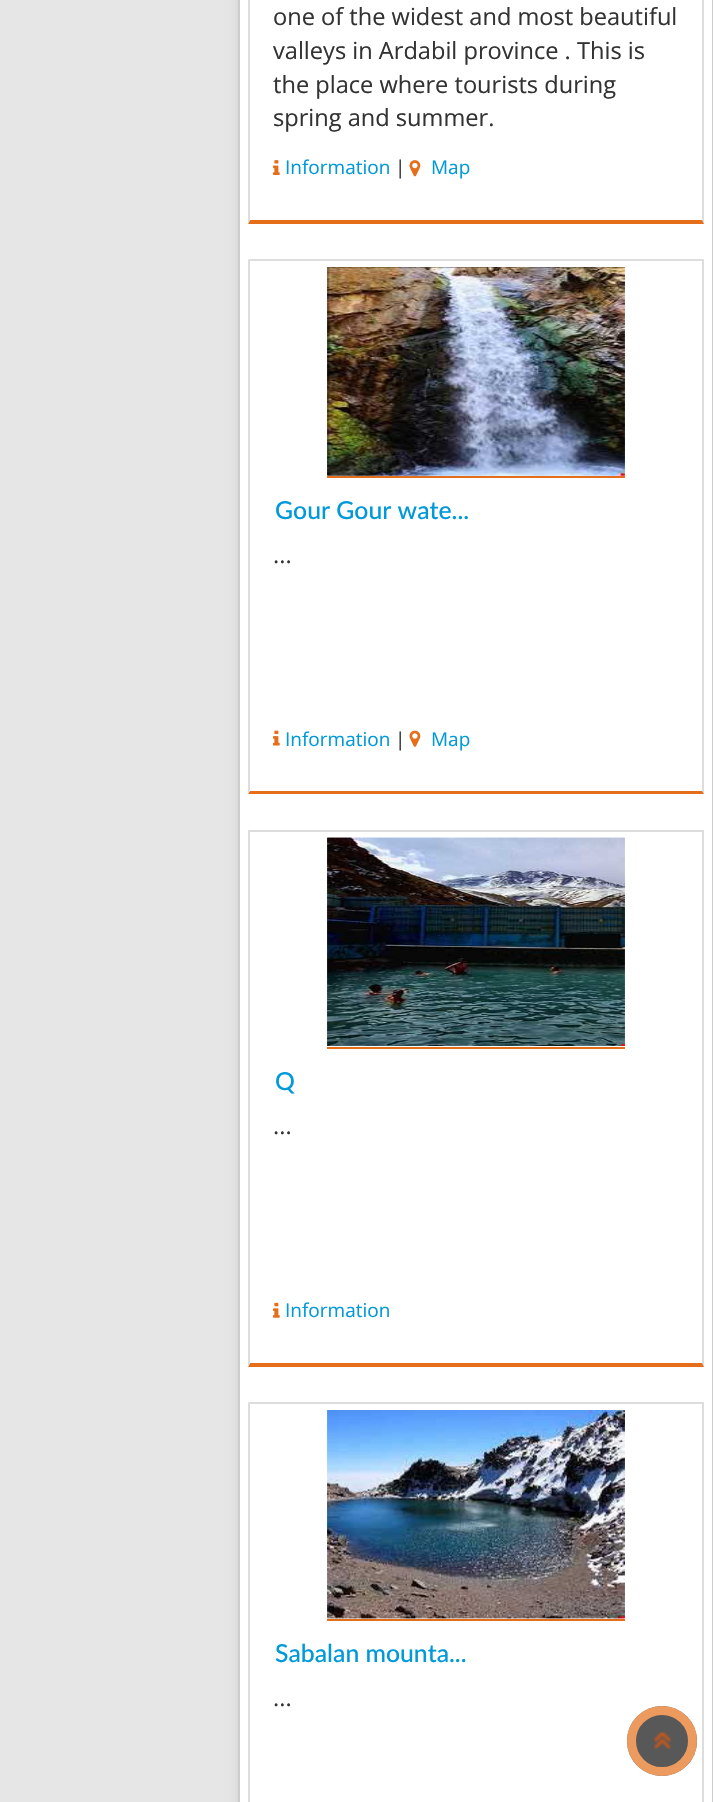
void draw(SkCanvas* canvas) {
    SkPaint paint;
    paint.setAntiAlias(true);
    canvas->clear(0xFFE6E6E6);
    paint.setColor(0xFFCCCCCC);
    paint.setMaskFilter(SkMaskFilter::MakeBlur(kNormal_SkBlurStyle, 7));
    canvas->drawRoundRect(SkRect::MakeXYWH(240, -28, 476, 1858), 7, 7, paint);
    paint.setMaskFilter(nullptr);
    paint.setColor(0xFFFFFFFF);
    canvas->drawRect(SkRect::MakeXYWH(239, -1, 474, 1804), paint);
    paint.setStyle(SkPaint::kStroke_Style);
    paint.setStrokeWidth(2);
    paint.setColor(0xFFCCCCCC);
    canvas->drawRect(SkRect::MakeXYWH(239, -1, 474, 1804), paint);
    paint.setStyle(SkPaint::kFill_Style);
    paint.setColor(0xFFDDDDDD);
    canvas->drawPath(SkPathBuilder().moveTo(704, -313).lineTo(704, 224).lineTo(702, 220).lineTo(702, -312).close().detach(), paint);
    paint.setColor(0xFFE56E1B);
    canvas->drawPath(SkPathBuilder().moveTo(704, 224).lineTo(248, 224).lineTo(250, 220).lineTo(702, 220).close().detach(), paint);
    paint.setColor(0xFFDDDDDD);
    canvas->drawPath(SkPathBuilder().moveTo(248, 224).lineTo(248, -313).lineTo(250, -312).lineTo(250, 220).close().detach(), paint);
    SkFont font1(fontMgr->matchFamilyStyle("Open Sans", SkFontStyle::Normal()), 23.6f);
    font1.setSubpixel(true);
    paint.setColor(0xFF333333);
    canvas->drawString("one of the widest and most beautiful", 273, 25, font1, paint);
    canvas->drawString("valleys in Ardabil province . This is", 273, 59, font1, paint);
    canvas->drawString("the place where tourists during", 273, 93, font1, paint);
    canvas->drawString("spring and summer.", 273, 126, font1, paint);
    canvas->drawImageRect(SkImages::DeferredFromEncodedData(SkData::MakeFromFileName("img1.png")), SkRect::MakeXYWH(273, 160, 7, 15), SkSamplingOptions());
    SkFont font2(fontMgr->matchFamilyStyle("Open Sans", SkFontStyle::Normal()), 19);
    font2.setSubpixel(true);
    paint.setColor(0xFF0099DA);
    canvas->drawString("Information", 285, 174, font2, paint);
    paint.setColor(0xFF333333);
    canvas->drawString("|", 395, 174, font2, paint);
    canvas->drawImageRect(SkImages::DeferredFromEncodedData(SkData::MakeFromFileName("img2.png")), SkRect::MakeXYWH(409, 160, 12, 17), SkSamplingOptions());
    paint.setColor(0xFF0099DA);
    canvas->drawString("Map", 431, 174, font2, paint);
    paint.setColor(0xFFDDDDDD);
    canvas->drawRect(SkRect::MakeXYWH(249, 259, 455, 2), paint);
    canvas->drawPath(SkPathBuilder().moveTo(704, 259).lineTo(704, 794).lineTo(702, 791).lineTo(702, 261).close().detach(), paint);
    paint.setColor(0xFFE56E1B);
    canvas->drawPath(SkPathBuilder().moveTo(704, 794).lineTo(248, 794).lineTo(250, 791).lineTo(702, 791).close().detach(), paint);
    paint.setColor(0xFFDDDDDD);
    canvas->drawPath(SkPathBuilder().moveTo(248, 794).lineTo(248, 259).lineTo(250, 261).lineTo(250, 791).close().detach(), paint);
    paint.setColor(0xFFFAFAFA);
    canvas->drawRect(SkRect::MakeXYWH(327, 268, 298, 208), paint);
    canvas->drawImageRect(SkImages::DeferredFromEncodedData(SkData::MakeFromFileName("img3.png")), SkRect::MakeXYWH(327, 267, 298, 209), SkSamplingOptions());
    paint.setColor(0xFFE56E1B);
    canvas->drawRect(SkRect::MakeXYWH(327, 476, 298, 2), paint);
    canvas->drawImageRect(SkImages::DeferredFromEncodedData(SkData::MakeFromFileName("img4.png")), SkRect::MakeXYWH(327, 267, 298, 209), SkSamplingOptions());
    SkFont font3(fontMgr->matchFamilyStyle("Lato", SkFontStyle(500, SkFontStyle::kNormal_Width, SkFontStyle::kUpright_Slant)), 24.75f);
    font3.setSubpixel(true);
    paint.setColor(0xFF0099DA);
    canvas->drawString("Gour Gour wate...", 275, 519, font3, paint);
    paint.setColor(0xFF333333);
    canvas->drawString("...", 273, 563, font1, paint);
    canvas->drawImageRect(SkImages::DeferredFromEncodedData(SkData::MakeFromFileName("img5.png")), SkRect::MakeXYWH(273, 730, 7, 16), SkSamplingOptions());
    paint.setColor(0xFF0099DA);
    canvas->drawString("Information", 285, 746, font2, paint);
    paint.setColor(0xFF333333);
    canvas->drawString("|", 395, 746, font2, paint);
    canvas->drawImageRect(SkImages::DeferredFromEncodedData(SkData::MakeFromFileName("img6.png")), SkRect::MakeXYWH(409, 730, 12, 17), SkSamplingOptions());
    paint.setColor(0xFF0099DA);
    canvas->drawString("Map", 431, 746, font2, paint);
    paint.setColor(0xFFDDDDDD);
    canvas->drawRect(SkRect::MakeXYWH(249, 830, 455, 2), paint);
    canvas->drawPath(SkPathBuilder().moveTo(704, 830).lineTo(704, 1367).lineTo(702, 1363).lineTo(702, 831).close().detach(), paint);
    paint.setColor(0xFFE56E1B);
    canvas->drawPath(SkPathBuilder().moveTo(704, 1367).lineTo(248, 1367).lineTo(250, 1363).lineTo(702, 1363).close().detach(), paint);
    paint.setColor(0xFFDDDDDD);
    canvas->drawPath(SkPathBuilder().moveTo(248, 1367).lineTo(248, 830).lineTo(250, 831).lineTo(250, 1363).close().detach(), paint);
    paint.setColor(0xFFFAFAFA);
    canvas->drawRect(SkRect::MakeXYWH(327, 838, 298, 209), paint);
    canvas->drawImageRect(SkImages::DeferredFromEncodedData(SkData::MakeFromFileName("img7.png")), SkRect::MakeXYWH(327, 837, 298, 209), SkSamplingOptions());
    paint.setColor(0xFFE56E1B);
    canvas->drawRect(SkRect::MakeXYWH(327, 1047, 298, 2), paint);
    canvas->drawImageRect(SkImages::DeferredFromEncodedData(SkData::MakeFromFileName("img8.png")), SkRect::MakeXYWH(327, 837, 298, 209), SkSamplingOptions());
    paint.setColor(0xFF0099DA);
    canvas->drawString("Q", 275, 1090, font3, paint);
    paint.setColor(0xFF333333);
    canvas->drawString("...", 273, 1134, font1, paint);
    canvas->drawImageRect(SkImages::DeferredFromEncodedData(SkData::MakeFromFileName("img9.png")), SkRect::MakeXYWH(273, 1302, 7, 16), SkSamplingOptions());
    paint.setColor(0xFF0099DA);
    canvas->drawString("Information", 285, 1317, font2, paint);
    paint.setColor(0xFFDDDDDD);
    canvas->drawRect(SkRect::MakeXYWH(249, 1402, 455, 2), paint);
    canvas->drawPath(SkPathBuilder().moveTo(704, 1402).lineTo(704, 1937).lineTo(702, 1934).lineTo(702, 1404).close().detach(), paint);
    canvas->drawPath(SkPathBuilder().moveTo(248, 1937).lineTo(248, 1402).lineTo(250, 1404).lineTo(250, 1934).close().detach(), paint);
    paint.setColor(0xFFFAFAFA);
    canvas->drawRect(SkRect::MakeXYWH(327, 1411, 298, 208), paint);
    canvas->drawImageRect(SkImages::DeferredFromEncodedData(SkData::MakeFromFileName("img10.png")), SkRect::MakeXYWH(327, 1410, 298, 209), SkSamplingOptions());
    paint.setColor(0xFFE56E1B);
    canvas->drawRect(SkRect::MakeXYWH(327, 1619, 298, 2), paint);
    canvas->drawImageRect(SkImages::DeferredFromEncodedData(SkData::MakeFromFileName("img11.png")), SkRect::MakeXYWH(327, 1410, 298, 209), SkSamplingOptions());
    paint.setColor(0xFF0099DA);
    canvas->drawString("Sabalan mounta...", 275, 1662, font3, paint);
    paint.setColor(0xFF333333);
    canvas->drawString("...", 273, 1706, font1, paint);
    paint.setColor(0xFF585858);
    canvas->drawCircle(662, 1741, 35, paint);
    canvas->drawImageRect(SkImages::DeferredFromEncodedData(SkData::MakeFromFileName("img12.png")), SkRect::MakeXYWH(653, 1732, 18, 18), SkSamplingOptions());
    paint.setStyle(SkPaint::kStroke_Style);
    paint.setStrokeWidth(9);
    paint.setColor(0xFFED9A5F);
    canvas->drawCircle(662, 1741, 30.5f, paint);
}
